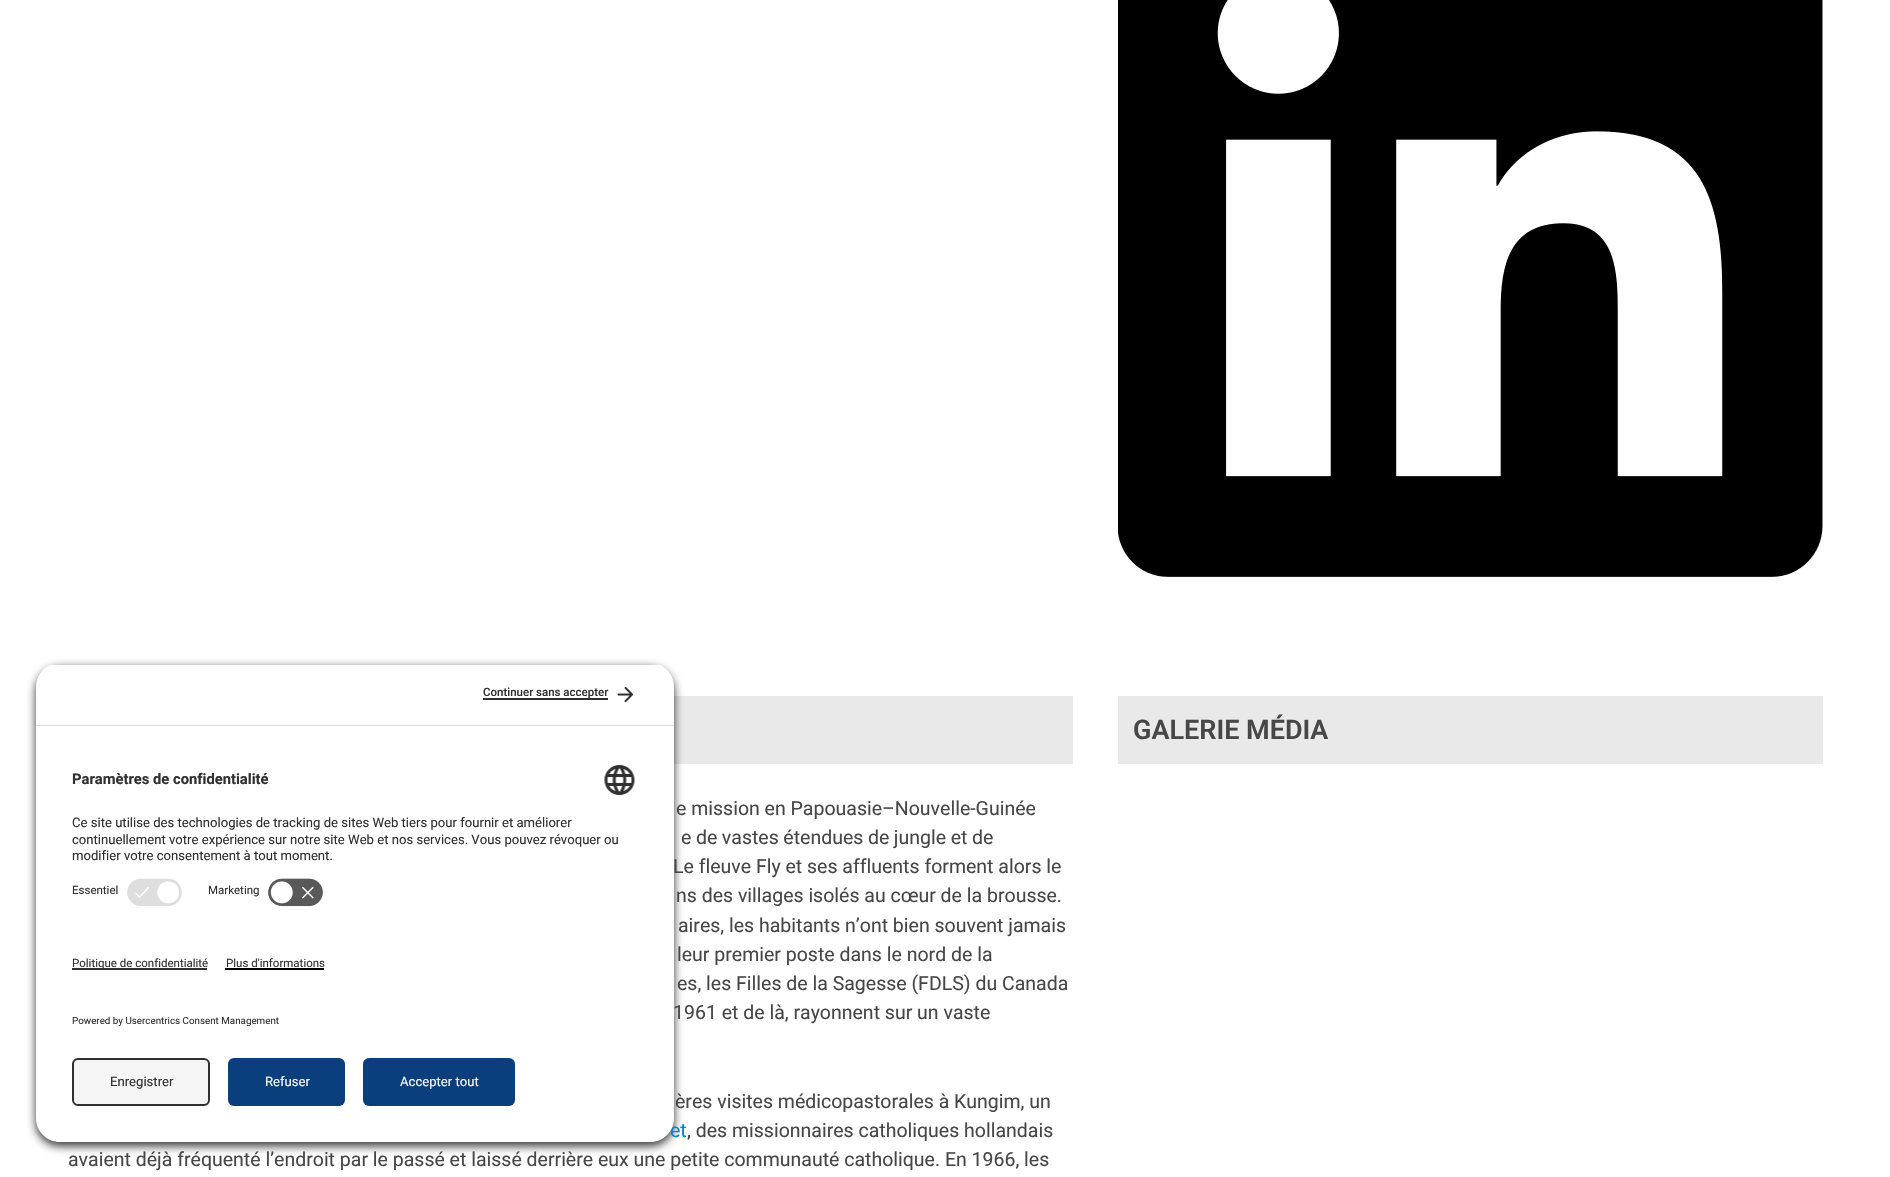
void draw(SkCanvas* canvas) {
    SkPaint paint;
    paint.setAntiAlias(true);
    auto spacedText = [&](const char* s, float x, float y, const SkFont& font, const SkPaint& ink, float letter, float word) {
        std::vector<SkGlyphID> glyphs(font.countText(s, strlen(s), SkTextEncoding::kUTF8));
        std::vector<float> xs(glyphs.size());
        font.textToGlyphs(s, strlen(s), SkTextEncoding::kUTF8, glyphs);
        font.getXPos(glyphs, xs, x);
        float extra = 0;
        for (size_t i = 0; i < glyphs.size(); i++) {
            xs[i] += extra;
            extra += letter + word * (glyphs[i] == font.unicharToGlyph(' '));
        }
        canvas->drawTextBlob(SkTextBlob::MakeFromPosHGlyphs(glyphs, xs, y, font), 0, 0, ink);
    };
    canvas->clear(0xFFFFFFFF);
    paint.setColor(0xFFE9E9E9);
    canvas->drawRect(SkRect::MakeXYWH(674, 696, 399, 68), paint);
    paint.setColor(0xCC000000);
    paint.setMaskFilter(SkMaskFilter::MakeBlur(kNormal_SkBlurStyle, 5));
    canvas->drawRoundRect(SkRect::MakeXYWH(36, 668, 638, 478), 24, 24, paint);
    paint.setMaskFilter(nullptr);
    canvas->save();
    canvas->clipPath(SkPathBuilder().moveTo(60, 663).lineTo(650, 663).cubicTo(663.5f, 663, 674, 673.5f, 674, 687).lineTo(674, 930).lineTo(36, 930).lineTo(36, 687).cubicTo(36, 673.5f, 46.5f, 663, 60, 663).close().detach(), true);
    paint.setColor(0xFFFFFFFF);
    canvas->drawRect(SkRect::MakeXYWH(36, 665, 638, 60), paint);
    canvas->restore();
    paint.setColor(0xFFDEDEDE);
    canvas->drawRect(SkRect::MakeXYWH(36, 725, 638, 1), paint);
    paint.setColor(0xFF303030);
    canvas->drawRect(SkRect::MakeXYWH(483, 698, 125, 2), paint);
    SkFont font1(fontMgr->matchFamilyStyle("Roboto", SkFontStyle(500, SkFontStyle::kNormal_Width, SkFontStyle::kUpright_Slant)), 11.5f);
    font1.setSubpixel(true);
    canvas->drawString("Continuer sans accepter", 483, 696, font1, paint);
    canvas->drawImageRect(SkImages::DeferredFromEncodedData(SkData::MakeFromFileName("img1.png")), SkRect::MakeXYWH(617, 686, 17, 17), SkSamplingOptions());
    paint.setColor(0xFFFFFFFF);
    canvas->drawRect(SkRect::MakeXYWH(36, 726, 638, 204), paint);
    SkFont font2(fontMgr->matchFamilyStyle("Roboto", SkFontStyle::Bold()), 14.75f);
    font2.setSubpixel(true);
    paint.setColor(0xFF303030);
    canvas->drawString("Paramètres de confidentialité", 72, 784, font2, paint);
    canvas->drawImageRect(SkImages::DeferredFromEncodedData(SkData::MakeFromFileName("img2.png")), SkRect::MakeXYWH(604, 765, 31, 30), SkSamplingOptions());
    SkFont font3(fontMgr->matchFamilyStyle("Roboto", SkFontStyle::Normal()), 13.1f);
    font3.setSubpixel(true);
    canvas->drawString("Ce site utilise des technologies de tracking de sites Web tiers pour fournir et améliorer", 72, 827, font3, paint);
    canvas->drawString("continuellement votre expérience sur notre site Web et nos services. Vous pouvez révoquer ou", 72, 844, font3, paint);
    canvas->drawString("modifier votre consentement à tout moment.", 72, 860, font3, paint);
    SkFont font4(fontMgr->matchFamilyStyle("Roboto", SkFontStyle::Normal()), 11.5f);
    font4.setSubpixel(true);
    canvas->drawString("Essentiel", 72, 894, font4, paint);
    canvas->drawImageRect(SkImages::DeferredFromEncodedData(SkData::MakeFromFileName("img3.png")), SkRect::MakeXYWH(127, 878, 55, 28), SkSamplingOptions());
    canvas->drawString("Marketing", 208, 894, font4, paint);
    canvas->drawImageRect(SkImages::DeferredFromEncodedData(SkData::MakeFromFileName("img4.png")), SkRect::MakeXYWH(268, 878, 55, 29), SkSamplingOptions());
    SkFont font5(fontMgr->matchFamilyStyle("Roboto", SkFontStyle::Normal()), 19.5f);
    font5.setSubpixel(true);
    paint.setColor(0xFF0083D0);
    canvas->drawString("et", 670, 1137, font5, paint);
    paint.setColor(0xFFFFFFFF);
    canvas->drawPath(SkPathBuilder().moveTo(36, 930).lineTo(674, 930).lineTo(674, 1118).cubicTo(674, 1131.5f, 663.5f, 1142, 650, 1142).lineTo(60, 1142).cubicTo(46.5f, 1142, 36, 1131.5f, 36, 1118).close().detach(), paint);
    paint.setColor(0xFF303030);
    canvas->drawRect(SkRect::MakeXYWH(72, 968, 135, 2), paint);
    canvas->drawString("Politique de confidentialité", 72, 967, font4, paint);
    canvas->drawString("Plus d'informations", 226, 967, font4, paint);
    paint.setColor(0xFF000000);
    canvas->drawRect(SkRect::MakeXYWH(225, 968, 99, 2), paint);
    SkFont font6(fontMgr->matchFamilyStyle("Roboto", SkFontStyle::Normal()), 9.8f);
    font6.setSubpixel(true);
    paint.setColor(0xFF303030);
    canvas->drawString("Powered by Usercentrics Consent Management", 72, 1024, font6, paint);
    paint.setColor(0xFFF5F5F5);
    canvas->drawRoundRect(SkRect::MakeXYWH(73, 1059, 136, 46), 5, 5, paint);
    paint.setStyle(SkPaint::kStroke_Style);
    paint.setStrokeWidth(2);
    paint.setColor(0xFF303030);
    canvas->drawRoundRect(SkRect::MakeXYWH(73, 1059, 136, 46), 5, 5, paint);
    paint.setStyle(SkPaint::kFill_Style);
    canvas->drawString("Enregistrer", 110, 1086, font3, paint);
    paint.setColor(0xFF0A3E7C);
    canvas->drawRoundRect(SkRect::MakeXYWH(228, 1058, 117, 48), 6, 6, paint);
    paint.setColor(0xFFFAFAFA);
    canvas->drawString("Refuser", 265, 1086, font3, paint);
    paint.setColor(0xFF0A3E7C);
    canvas->drawRoundRect(SkRect::MakeXYWH(363, 1058, 152, 48), 6, 6, paint);
    paint.setColor(0xFFFAFAFA);
    canvas->drawString("Accepter tout", 400, 1086, font3, paint);
    canvas->drawImageRect(SkImages::DeferredFromEncodedData(SkData::MakeFromFileName("img5.png")), SkRect::MakeXYWH(1118, 0, 705, 577), SkSamplingOptions());
    paint.setColor(0xFFE9E9E9);
    canvas->drawRect(SkRect::MakeXYWH(1118, 696, 705, 68), paint);
    SkFont font7(fontMgr->matchFamilyStyle("Roboto", SkFontStyle(600, SkFontStyle::kNormal_Width, SkFontStyle::kUpright_Slant)), 27);
    font7.setSubpixel(true);
    paint.setColor(0xFF474747);
    canvas->drawString("GALERIE MÉDIA", 1133, 739, font7, paint);
    canvas->drawString("e mission en Papouasie–Nouvelle-Guinée", 676, 815, font5, paint);
    spacedText("e de vastes étendues de jungle et de", 681, 844, font5, paint, 0, -0.25f);
    canvas->drawString("Le fleuve Fly et ses affluents forment alors le", 673, 873, font5, paint);
    canvas->drawString("ns des villages isolés au cœur de la brousse.", 676, 902, font5, paint);
    canvas->drawString("aires, les habitants n’ont bien souvent jamais", 678, 932, font5, paint);
    canvas->drawString("leur premier poste dans le nord de la", 677, 961, font5, paint);
    canvas->drawString("es, les Filles de la Sagesse (FDLS) du Canada", 677, 990, font5, paint);
    canvas->drawString("1961 et de là, rayonnent sur un vaste", 673, 1019, font5, paint);
    canvas->drawString("ères visites médicopastorales à Kungim, un", 675, 1108, font5, paint);
    canvas->drawString(", des missionnaires catholiques hollandais", 687, 1137, font5, paint);
    canvas->drawString("avaient déjà fréquenté l’endroit par le passé et laissé derrière eux une petite communauté catholique. En 1966, les", 68, 1166, font5, paint);
}
